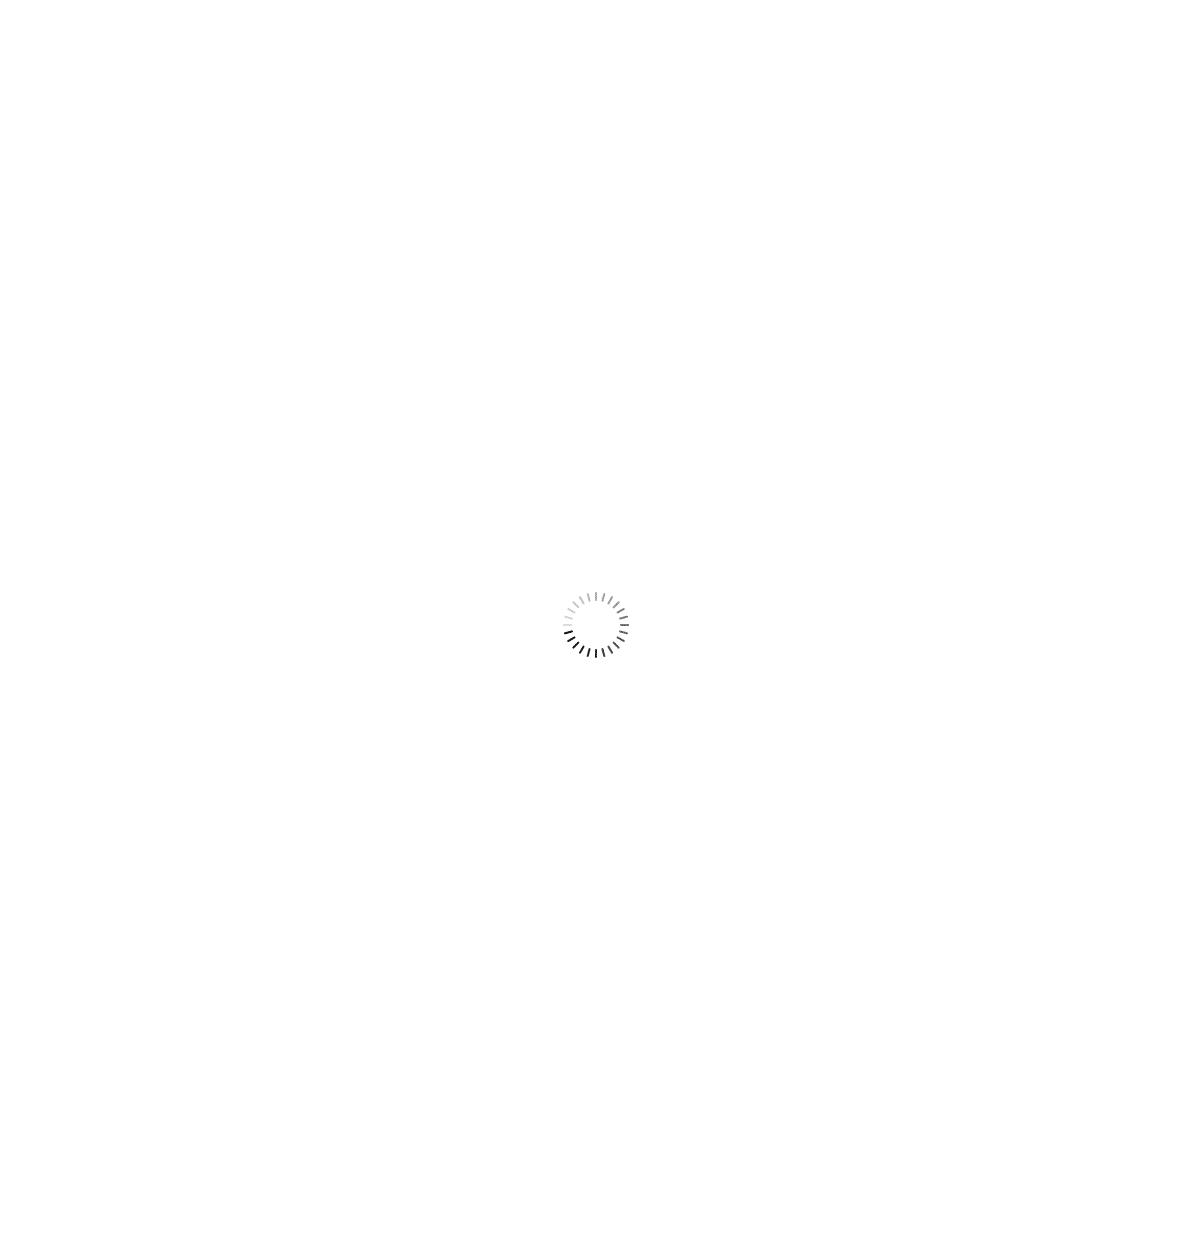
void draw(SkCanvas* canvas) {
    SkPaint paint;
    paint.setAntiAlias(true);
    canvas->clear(0xFFFFFFFF);
    canvas->drawImageRect(SkImages::DeferredFromEncodedData(SkData::MakeFromFileName("img1.png")), SkRect::MakeXYWH(563, 592, 66, 66), SkSamplingOptions());
}
